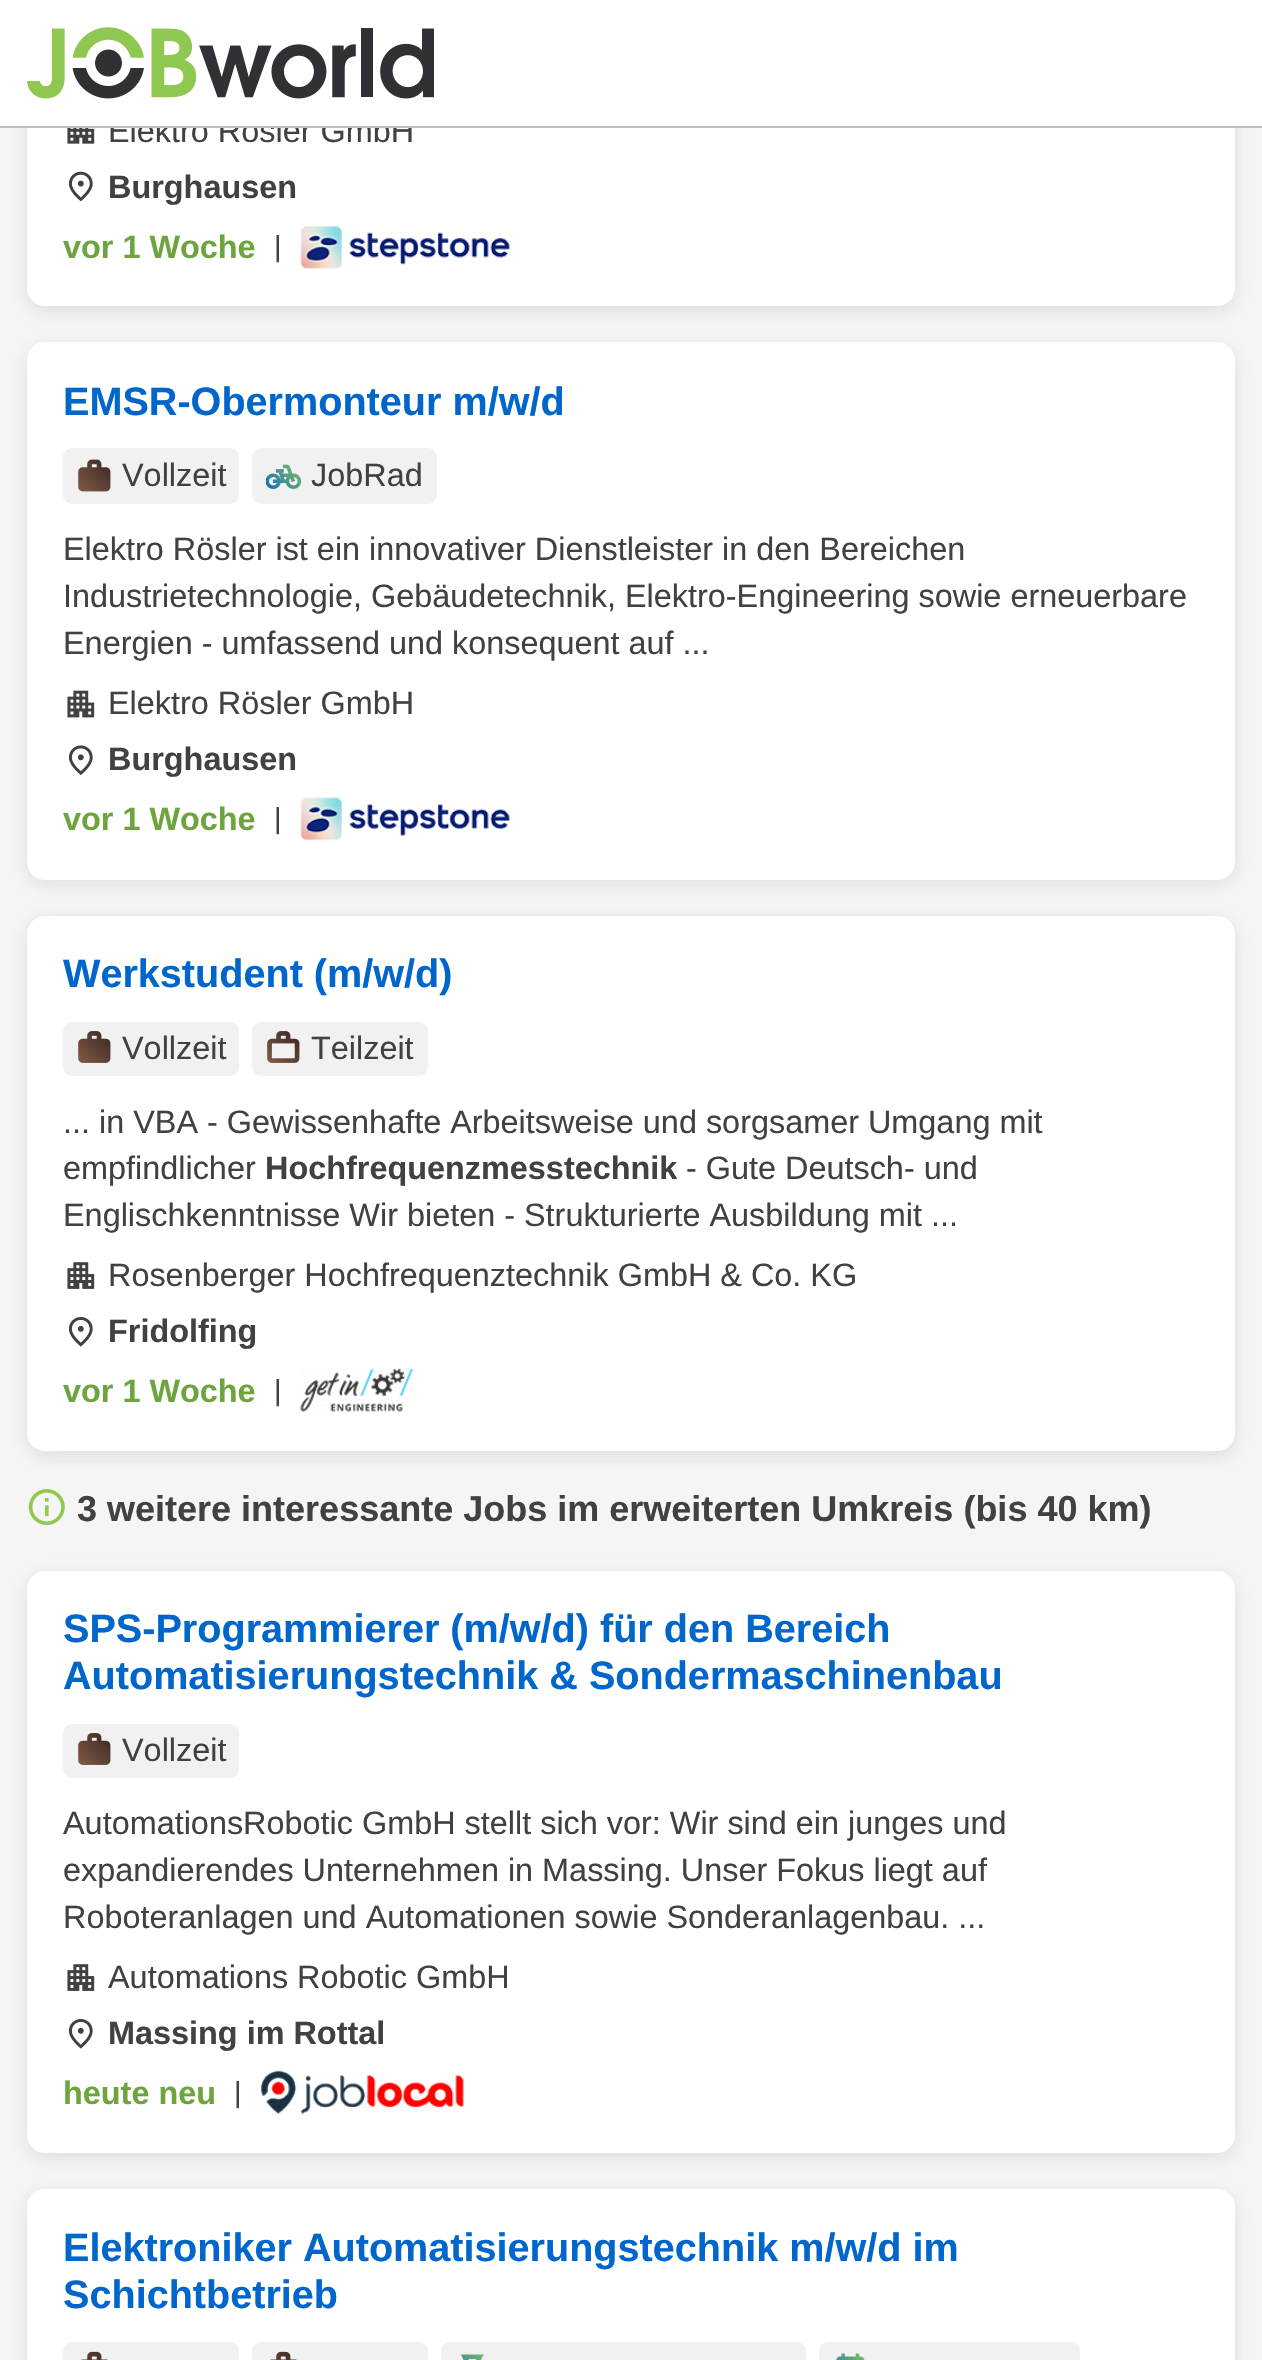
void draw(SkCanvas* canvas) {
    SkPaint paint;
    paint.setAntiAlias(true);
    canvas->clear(0xFFF5F5F5);
    paint.setColor(0xCCD7D7D7);
    paint.setMaskFilter(SkMaskFilter::MakeBlur(kNormal_SkBlurStyle, 9));
    canvas->drawRoundRect(SkRect::MakeXYWH(27, -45, 1208, 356), 18, 18, paint);
    paint.setMaskFilter(nullptr);
    paint.setColor(0xFFFFFFFF);
    canvas->drawRoundRect(SkRect::MakeXYWH(27, -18, 1208, 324), 18, 18, paint);
    SkFont font1(fontMgr->matchFamilyStyle("Liberation Sans", SkFontStyle::Normal()), 32.4f);
    font1.setSubpixel(true);
    paint.setColor(0xFF414141);
    canvas->drawString("Elektro Rösler GmbH", 108, 142, font1, paint);
    paint.setColor(0xFFFFFFFF);
    canvas->drawRect(SkRect::MakeXYWH(0, 0, 1262, 126), paint);
    paint.setColor(0xFFBFBFBF);
    canvas->drawRect(SkRect::MakeXYWH(0, 126, 1262, 2), paint);
    canvas->drawImageRect(SkImages::DeferredFromEncodedData(SkData::MakeFromFileName("img1.png")), SkRect::MakeXYWH(27, 27, 407, 72), SkSamplingOptions());
    canvas->drawImageRect(SkImages::DeferredFromEncodedData(SkData::MakeFromFileName("img2.png")), SkRect::MakeXYWH(67, 128, 28, 16), SkSamplingOptions());
    canvas->drawImageRect(SkImages::DeferredFromEncodedData(SkData::MakeFromFileName("img3.png")), SkRect::MakeXYWH(68, 171, 25, 31), SkSamplingOptions());
    SkFont font2(fontMgr->matchFamilyStyle("Liberation Sans", SkFontStyle::Bold()), 32.4f);
    font2.setSubpixel(true);
    paint.setColor(0xFF414141);
    canvas->drawString("Burghausen", 108, 198, font2, paint);
    paint.setColor(0xFF6DA43E);
    canvas->drawString("vor 1 Woche", 63, 258, font2, paint);
    SkFont font3(fontMgr->matchFamilyStyle("Liberation Sans", SkFontStyle::Normal()), 29);
    font3.setSubpixel(true);
    paint.setColor(0xFF414141);
    canvas->drawString("|", 274, 256, font3, paint);
    canvas->drawImageRect(SkImages::DeferredFromEncodedData(SkData::MakeFromFileName("img4.png")), SkRect::MakeXYWH(300, 225, 210, 44), SkSamplingOptions());
    paint.setColor(0xCCD7D7D7);
    paint.setMaskFilter(SkMaskFilter::MakeBlur(kNormal_SkBlurStyle, 9));
    canvas->drawRoundRect(SkRect::MakeXYWH(27, 347, 1208, 537), 18, 18, paint);
    paint.setMaskFilter(nullptr);
    paint.setColor(0xFFFFFFFF);
    canvas->drawRoundRect(SkRect::MakeXYWH(27, 342, 1208, 538), 18, 18, paint);
    SkFont font4(fontMgr->matchFamilyStyle("Liberation Sans", SkFontStyle::Bold()), 39.6f);
    font4.setSubpixel(true);
    paint.setColor(0xFF0066CC);
    canvas->drawString("EMSR-Obermonteur m/w/d", 63, 415, font4, paint);
    paint.setColor(0xFFF1F1F1);
    canvas->drawRoundRect(SkRect::MakeXYWH(63, 448, 176, 56), 9, 9, paint);
    canvas->drawImageRect(SkImages::DeferredFromEncodedData(SkData::MakeFromFileName("img5.png")), SkRect::MakeXYWH(78, 459, 33, 33), SkSamplingOptions());
    paint.setColor(0xFF414141);
    canvas->drawString("Vollzeit", 122, 486, font1, paint);
    paint.setColor(0xFFF1F1F1);
    canvas->drawRoundRect(SkRect::MakeXYWH(252, 448, 185, 56), 9, 9, paint);
    canvas->drawImageRect(SkImages::DeferredFromEncodedData(SkData::MakeFromFileName("img6.png")), SkRect::MakeXYWH(266, 464, 36, 25), SkSamplingOptions());
    paint.setColor(0xFF414141);
    canvas->drawString("JobRad", 311, 486, font1, paint);
    canvas->drawString("Elektro Rösler ist ein innovativer Dienstleister in den Bereichen", 63, 560, font1, paint);
    canvas->drawString("Industrietechnologie, Gebäudetechnik, Elektro-Engineering sowie erneuerbare", 63, 607, font1, paint);
    canvas->drawString("Energien - umfassend und konsequent auf ...", 63, 654, font1, paint);
    canvas->drawImageRect(SkImages::DeferredFromEncodedData(SkData::MakeFromFileName("img7.png")), SkRect::MakeXYWH(67, 690, 28, 28), SkSamplingOptions());
    canvas->drawString("Elektro Rösler GmbH", 108, 714, font1, paint);
    canvas->drawImageRect(SkImages::DeferredFromEncodedData(SkData::MakeFromFileName("img8.png")), SkRect::MakeXYWH(68, 745, 25, 31), SkSamplingOptions());
    canvas->drawString("Burghausen", 108, 770, font2, paint);
    paint.setColor(0xFF6DA43E);
    canvas->drawString("vor 1 Woche", 63, 830, font2, paint);
    paint.setColor(0xFF414141);
    canvas->drawString("|", 274, 828, font3, paint);
    canvas->drawImageRect(SkImages::DeferredFromEncodedData(SkData::MakeFromFileName("img9.png")), SkRect::MakeXYWH(300, 797, 210, 44), SkSamplingOptions());
    paint.setColor(0xCCD7D7D7);
    paint.setMaskFilter(SkMaskFilter::MakeBlur(kNormal_SkBlurStyle, 9));
    canvas->drawRoundRect(SkRect::MakeXYWH(27, 920, 1208, 536), 18, 18, paint);
    paint.setMaskFilter(nullptr);
    paint.setColor(0xFFFFFFFF);
    canvas->drawRoundRect(SkRect::MakeXYWH(27, 916, 1208, 535), 18, 18, paint);
    paint.setColor(0xFF0066CC);
    canvas->drawString("Werkstudent (m/w/d)", 63, 987, font4, paint);
    paint.setColor(0xFFF1F1F1);
    canvas->drawRoundRect(SkRect::MakeXYWH(63, 1022, 176, 54), 9, 9, paint);
    canvas->drawImageRect(SkImages::DeferredFromEncodedData(SkData::MakeFromFileName("img10.png")), SkRect::MakeXYWH(78, 1031, 33, 32), SkSamplingOptions());
    paint.setColor(0xFF414141);
    canvas->drawString("Vollzeit", 122, 1059, font1, paint);
    paint.setColor(0xFFF1F1F1);
    canvas->drawRoundRect(SkRect::MakeXYWH(252, 1022, 176, 54), 9, 9, paint);
    canvas->drawImageRect(SkImages::DeferredFromEncodedData(SkData::MakeFromFileName("img11.png")), SkRect::MakeXYWH(267, 1031, 33, 32), SkSamplingOptions());
    paint.setColor(0xFF414141);
    canvas->drawString("Teilzeit", 311, 1059, font1, paint);
    canvas->drawString("... in VBA - Gewissenhafte Arbeitsweise und sorgsamer Umgang mit", 63, 1133, font1, paint);
    canvas->drawString("empfindlicher", 63, 1179, font1, paint);
    canvas->drawString("Hochfrequenzmesstechnik", 265, 1179, font2, paint);
    canvas->drawString("- Gute Deutsch- und", 686, 1179, font1, paint);
    canvas->drawString("Englischkenntnisse Wir bieten - Strukturierte Ausbildung mit ...", 63, 1226, font1, paint);
    canvas->drawImageRect(SkImages::DeferredFromEncodedData(SkData::MakeFromFileName("img12.png")), SkRect::MakeXYWH(67, 1262, 28, 27), SkSamplingOptions());
    canvas->drawString("Rosenberger Hochfrequenztechnik GmbH & Co. KG", 108, 1286, font1, paint);
    canvas->drawImageRect(SkImages::DeferredFromEncodedData(SkData::MakeFromFileName("img13.png")), SkRect::MakeXYWH(68, 1317, 25, 30), SkSamplingOptions());
    canvas->drawString("Fridolfing", 108, 1342, font2, paint);
    paint.setColor(0xFF6DA43E);
    canvas->drawString("vor 1 Woche", 63, 1402, font2, paint);
    paint.setColor(0xFF414141);
    canvas->drawString("|", 274, 1400, font3, paint);
    canvas->drawImageRect(SkImages::DeferredFromEncodedData(SkData::MakeFromFileName("img14.png")), SkRect::MakeXYWH(300, 1368, 113, 44), SkSamplingOptions());
    canvas->drawImageRect(SkImages::DeferredFromEncodedData(SkData::MakeFromFileName("img15.png")), SkRect::MakeXYWH(28, 1489, 37, 36), SkSamplingOptions());
    SkFont font5(fontMgr->matchFamilyStyle("Liberation Sans", SkFontStyle::Bold()), 36);
    font5.setSubpixel(true);
    canvas->drawString("3 weitere interessante Jobs im erweiterten Umkreis (bis 40 km)", 77, 1521, font5, paint);
    paint.setColor(0xCCD7D7D7);
    paint.setMaskFilter(SkMaskFilter::MakeBlur(kNormal_SkBlurStyle, 9));
    canvas->drawRoundRect(SkRect::MakeXYWH(27, 1575, 1208, 583), 18, 18, paint);
    paint.setMaskFilter(nullptr);
    paint.setColor(0xFFFFFFFF);
    canvas->drawRoundRect(SkRect::MakeXYWH(27, 1571, 1208, 582), 18, 18, paint);
    paint.setColor(0xFF0066CC);
    canvas->drawString("SPS-Programmierer (m/w/d) für den Bereich", 63, 1642, font4, paint);
    canvas->drawString("Automatisierungstechnik & Sondermaschinenbau", 63, 1689, font4, paint);
    paint.setColor(0xFFF1F1F1);
    canvas->drawRoundRect(SkRect::MakeXYWH(63, 1724, 176, 54), 9, 9, paint);
    canvas->drawImageRect(SkImages::DeferredFromEncodedData(SkData::MakeFromFileName("img10.png")), SkRect::MakeXYWH(78, 1733, 33, 32), SkSamplingOptions());
    paint.setColor(0xFF414141);
    canvas->drawString("Vollzeit", 122, 1761, font1, paint);
    canvas->drawString("AutomationsRobotic GmbH stellt sich vor: Wir sind ein junges und", 63, 1834, font1, paint);
    canvas->drawString("expandierendes Unternehmen in Massing. Unser Fokus liegt auf", 63, 1881, font1, paint);
    canvas->drawString("Roboteranlagen und Automationen sowie Sonderanlagenbau. ...", 63, 1928, font1, paint);
    canvas->drawImageRect(SkImages::DeferredFromEncodedData(SkData::MakeFromFileName("img12.png")), SkRect::MakeXYWH(67, 1964, 28, 27), SkSamplingOptions());
    canvas->drawString("Automations Robotic GmbH", 108, 1988, font1, paint);
    canvas->drawImageRect(SkImages::DeferredFromEncodedData(SkData::MakeFromFileName("img13.png")), SkRect::MakeXYWH(68, 2019, 25, 30), SkSamplingOptions());
    canvas->drawString("Massing im Rottal", 108, 2044, font2, paint);
    paint.setColor(0xFF6DA43E);
    canvas->drawString("heute neu", 63, 2104, font2, paint);
    paint.setColor(0xFF414141);
    canvas->drawString("|", 234, 2102, font3, paint);
    canvas->drawImageRect(SkImages::DeferredFromEncodedData(SkData::MakeFromFileName("img16.png")), SkRect::MakeXYWH(261, 2070, 203, 44), SkSamplingOptions());
    paint.setColor(0xCCD7D7D7);
    paint.setMaskFilter(SkMaskFilter::MakeBlur(kNormal_SkBlurStyle, 9));
    canvas->drawRoundRect(SkRect::MakeXYWH(27, 2194, 1208, 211), 18, 18, paint);
    paint.setMaskFilter(nullptr);
    paint.setColor(0xFFFFFFFF);
    canvas->drawRoundRect(SkRect::MakeXYWH(27, 2189, 1208, 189), 18, 18, paint);
    paint.setColor(0xFF0066CC);
    canvas->drawString("Elektroniker Automatisierungstechnik m/w/d im", 63, 2261, font4, paint);
    canvas->drawString("Schichtbetrieb", 63, 2308, font4, paint);
    paint.setColor(0xFFF1F1F1);
    canvas->drawRoundRect(SkRect::MakeXYWH(63, 2342, 176, 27), 9, 9, paint);
    canvas->drawImageRect(SkImages::DeferredFromEncodedData(SkData::MakeFromFileName("img17.png")), SkRect::MakeXYWH(81, 2351, 27, 9), SkSamplingOptions());
    canvas->drawRoundRect(SkRect::MakeXYWH(252, 2342, 176, 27), 9, 9, paint);
    canvas->drawImageRect(SkImages::DeferredFromEncodedData(SkData::MakeFromFileName("img17.png")), SkRect::MakeXYWH(270, 2351, 27, 9), SkSamplingOptions());
    canvas->drawRoundRect(SkRect::MakeXYWH(441, 2342, 365, 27), 9, 9, paint);
    canvas->drawImageRect(SkImages::DeferredFromEncodedData(SkData::MakeFromFileName("img18.png")), SkRect::MakeXYWH(461, 2354, 23, 6), SkSamplingOptions());
    canvas->drawRoundRect(SkRect::MakeXYWH(819, 2342, 261, 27), 9, 9, paint);
    canvas->drawImageRect(SkImages::DeferredFromEncodedData(SkData::MakeFromFileName("img19.png")), SkRect::MakeXYWH(836, 2353, 29, 7), SkSamplingOptions());
}
